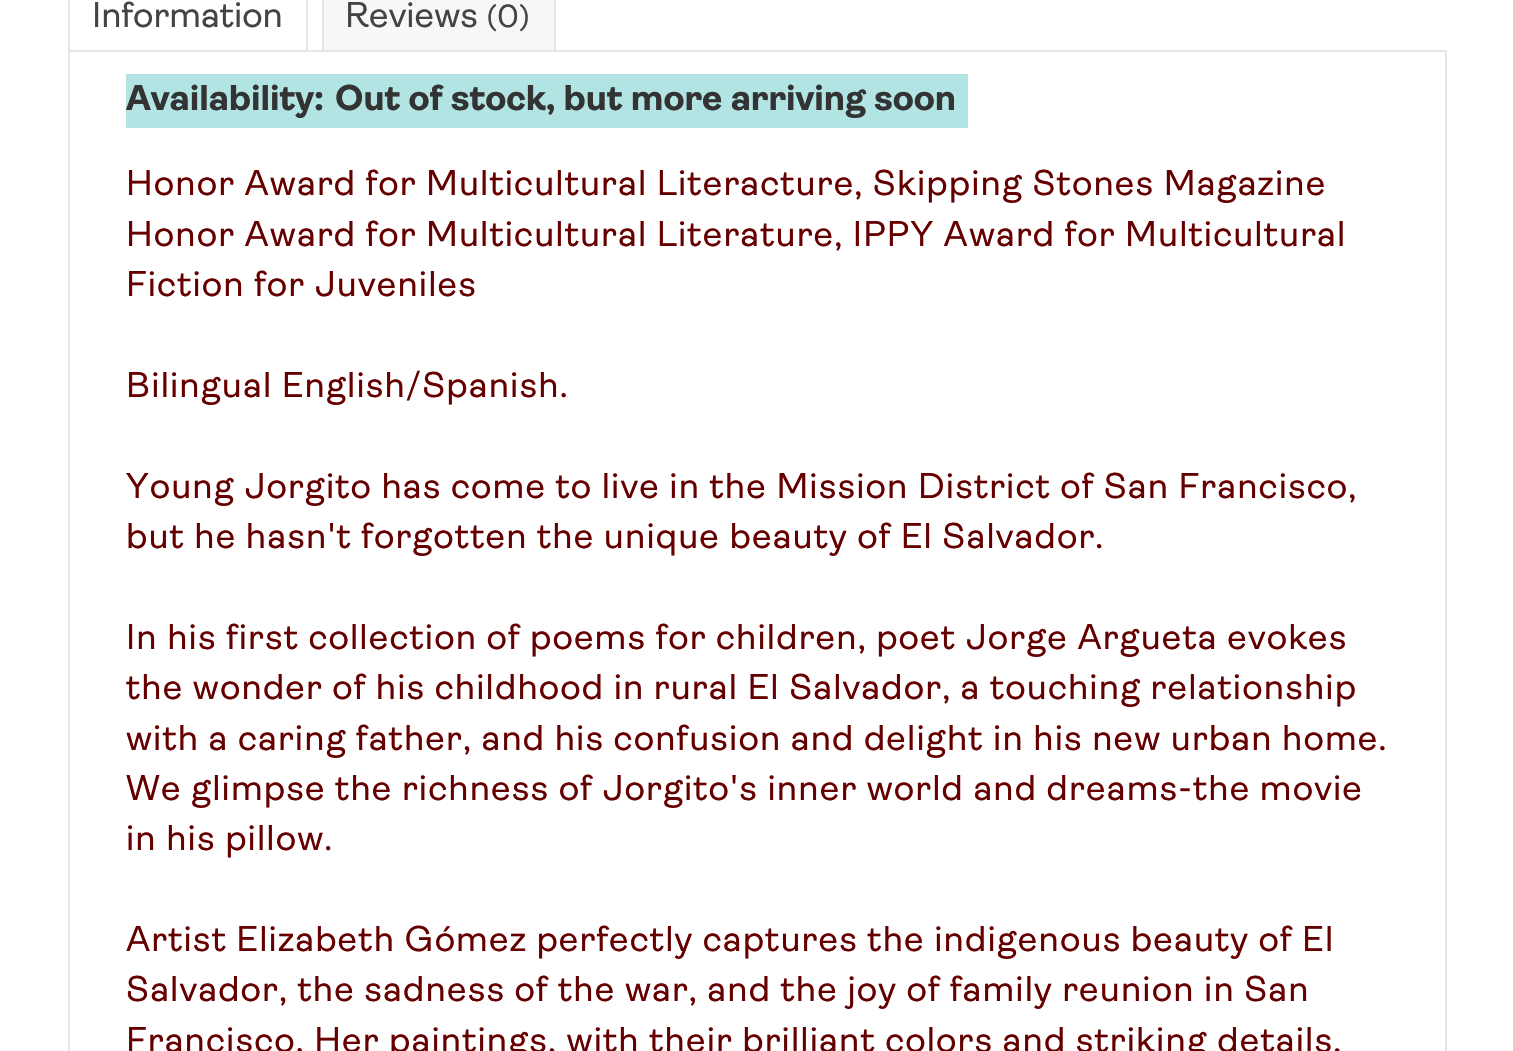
void draw(SkCanvas* canvas) {
    SkPaint paint;
    paint.setAntiAlias(true);
    auto spacedText = [&](const char* s, float x, float y, const SkFont& font, const SkPaint& ink, float letter, float word) {
        std::vector<SkGlyphID> glyphs(font.countText(s, strlen(s), SkTextEncoding::kUTF8));
        std::vector<float> xs(glyphs.size());
        font.textToGlyphs(s, strlen(s), SkTextEncoding::kUTF8, glyphs);
        font.getXPos(glyphs, xs, x);
        float extra = 0;
        for (size_t i = 0; i < glyphs.size(); i++) {
            xs[i] += extra;
            extra += letter + word * (glyphs[i] == font.unicharToGlyph(' '));
        }
        canvas->drawTextBlob(SkTextBlob::MakeFromPosHGlyphs(glyphs, xs, y, font), 0, 0, ink);
    };
    canvas->clear(0xFFFFFFFF);
    paint.setColor(0xFFE5E5E5);
    canvas->drawRect(SkRect::MakeXYWH(306, 0, 2, 52), paint);
    canvas->drawRect(SkRect::MakeXYWH(68, 0, 2, 52), paint);
    SkFont font1(fontMgr->matchFamilyStyle("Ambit", SkFontStyle::Normal()), 36);
    font1.setSubpixel(true);
    paint.setColor(0xFF444444);
    canvas->drawString("Information", 92, 27, font1, paint);
    paint.setColor(0xFFF7F7F7);
    canvas->drawRect(SkRect::MakeXYWH(324, 0, 230, 50), paint);
    paint.setColor(0xFFE5E5E5);
    canvas->drawRect(SkRect::MakeXYWH(554, 0, 2, 52), paint);
    canvas->drawRect(SkRect::MakeXYWH(322, 0, 2, 52), paint);
    paint.setColor(0xFF444444);
    canvas->drawString("Reviews", 345, 27, font1, paint);
    SkFont font2(fontMgr->matchFamilyStyle("Ambit", SkFontStyle::Normal()), 32);
    font2.setSubpixel(true);
    canvas->drawString("(0)", 486, 27, font2, paint);
    paint.setStyle(SkPaint::kStroke_Style);
    paint.setStrokeWidth(2);
    paint.setColor(0xFFE5E5E5);
    canvas->drawRect(SkRect::MakeXYWH(69, 51, 1377, 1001), paint);
    paint.setStyle(SkPaint::kFill_Style);
    paint.setColor(0xFFB1E4E3);
    canvas->drawRect(SkRect::MakeXYWH(126, 74, 842, 54), paint);
    SkFont font3(fontMgr->matchFamilyStyle("Ambit", SkFontStyle::Bold()), 36);
    font3.setSubpixel(true);
    paint.setColor(0xFF333333);
    canvas->drawString("Availability:", 126, 110, font3, paint);
    canvas->drawString("Out of stock, but more arriving soon", 335, 110, font3, paint);
    paint.setColor(0xFF660000);
    spacedText("Honor Award for Multicultural Literacture, Skipping Stones Magazine", 126, 195, font1, paint, 1.12f, 0);
    spacedText("Honor Award for Multicultural Literature, IPPY Award for Multicultural", 126, 246, font1, paint, 1.12f, 0);
    spacedText("Fiction for Juveniles", 126, 296, font1, paint, 1.12f, 0);
    spacedText("Bilingual English/Spanish.", 126, 397, font1, paint, 1.12f, 0);
    spacedText("Young Jorgito has come to live in the Mission District of San Francisco,", 126, 498, font1, paint, 1.12f, 0);
    spacedText("but he hasn't forgotten the unique beauty of El Salvador.", 126, 548, font1, paint, 1.12f, 0);
    spacedText("In his first collection of poems for children, poet Jorge Argueta evokes", 126, 649, font1, paint, 1.12f, 0);
    spacedText("the wonder of his childhood in rural El Salvador, a touching relationship", 126, 699, font1, paint, 1.12f, 0);
    spacedText("with a caring father, and his confusion and delight in his new urban home.", 126, 750, font1, paint, 1.12f, 0);
    spacedText("We glimpse the richness of Jorgito's inner world and dreams-the movie", 126, 800, font1, paint, 1.12f, 0);
    spacedText("in his pillow.", 126, 850, font1, paint, 1.12f, 0);
    spacedText("Artist Elizabeth Gómez perfectly captures the indigenous beauty of El", 126, 951, font1, paint, 1.12f, 0);
    spacedText("Salvador, the sadness of the war, and the joy of family reunion in San", 126, 1001, font1, paint, 1.12f, 0);
    spacedText("Francisco. Her paintings, with their brilliant colors and striking details,", 126, 1052, font1, paint, 1.12f, 0);
}
